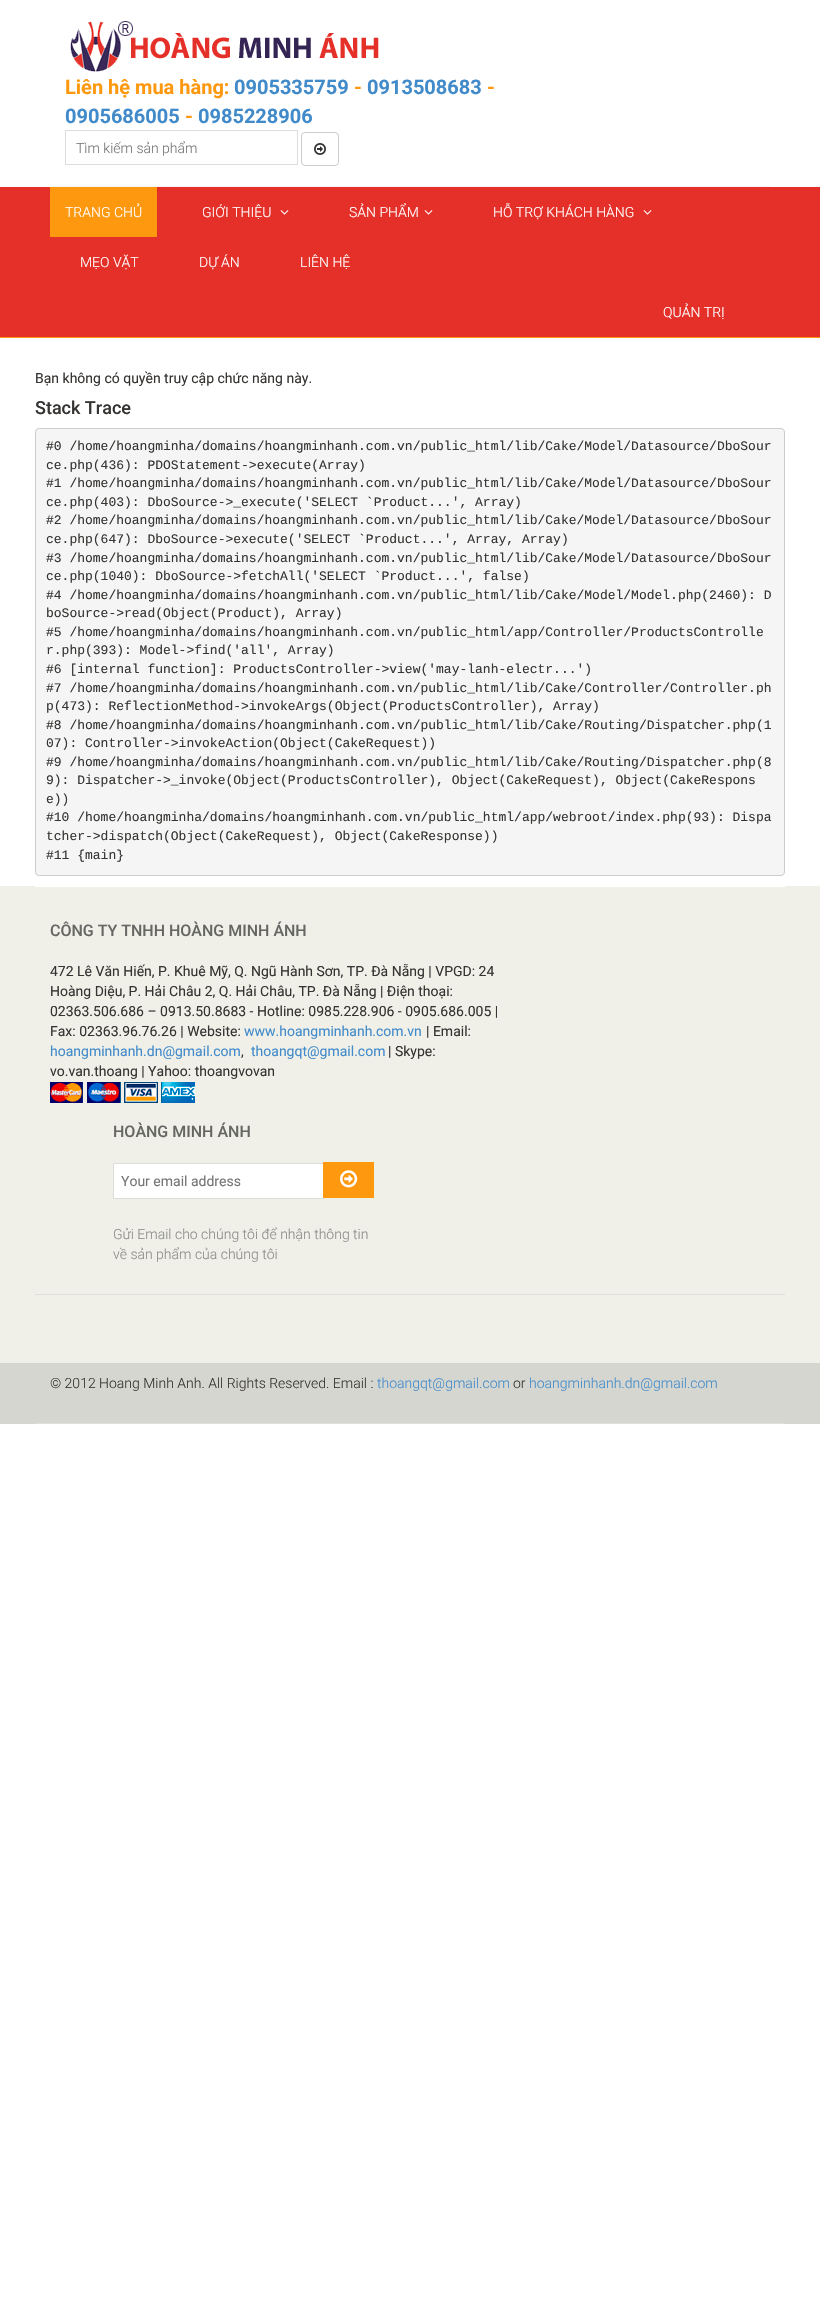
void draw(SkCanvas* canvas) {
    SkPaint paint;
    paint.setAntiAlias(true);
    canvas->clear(0xFFFFFFFF);
    paint.setColor(0xFFF5F5F5);
    canvas->drawRect(SkRect::MakeXYWH(50, 186, 720, 1), paint);
    canvas->drawImageRect(SkImages::DeferredFromEncodedData(SkData::MakeFromFileName("img1.png")), SkRect::MakeXYWH(70, 21, 309, 51), SkSamplingOptions());
    SkFont font1(fontMgr->matchFamilyStyle("Roboto", SkFontStyle::Bold()), 20);
    font1.setSubpixel(true);
    paint.setColor(0xFFFE980F);
    canvas->drawString("Liên hệ mua hàng:", 65, 94, font1, paint);
    paint.setColor(0xFF428BCA);
    canvas->drawString("0905335759", 234, 94, font1, paint);
    paint.setColor(0xFFFE980F);
    canvas->drawString("-", 354, 94, font1, paint);
    paint.setColor(0xFF428BCA);
    canvas->drawString("0913508683", 367, 94, font1, paint);
    paint.setColor(0xFFFE980F);
    canvas->drawString("-", 487, 94, font1, paint);
    paint.setColor(0xFF428BCA);
    canvas->drawString("0905686005", 65, 123, font1, paint);
    paint.setColor(0xFFFE980F);
    canvas->drawString("-", 185, 123, font1, paint);
    paint.setColor(0xFF428BCA);
    canvas->drawString("0985228906", 198, 123, font1, paint);
    paint.setStyle(SkPaint::kStroke_Style);
    paint.setStrokeWidth(1);
    paint.setColor(0xFFDDDDDD);
    canvas->drawRect(SkRect::MakeXYWH(65.5f, 130.5f, 232, 34), paint);
    SkFont font2(fontMgr->matchFamilyStyle("Roboto", SkFontStyle(300, SkFontStyle::kNormal_Width, SkFontStyle::kUpright_Slant)), 14);
    font2.setSubpixel(true);
    paint.setStyle(SkPaint::kFill_Style);
    paint.setColor(0xFF757575);
    canvas->drawString("Tìm kiếm sản phẩm", 76, 153, font2, paint);
    paint.setStyle(SkPaint::kStroke_Style);
    paint.setColor(0xFFCCCCCC);
    canvas->drawRoundRect(SkRect::MakeXYWH(301.5f, 132.5f, 37, 33), 3.5f, 3.5f, paint);
    canvas->drawImageRect(SkImages::DeferredFromEncodedData(SkData::MakeFromFileName("img2.png")), SkRect::MakeXYWH(314, 143, 12, 12), SkSamplingOptions());
    paint.setStyle(SkPaint::kFill_Style);
    paint.setColor(0xFFE53029);
    canvas->drawRect(SkRect::MakeXYWH(0, 187, 820, 150), paint);
    paint.setColor(0xFFFE980F);
    canvas->drawRect(SkRect::MakeXYWH(0, 337, 820, 1), paint);
    canvas->drawRect(SkRect::MakeXYWH(50, 187, 107, 50), paint);
    paint.setColor(0xFFFFFFFF);
    canvas->drawString("TRANG CHỦ", 65, 217, font2, paint);
    canvas->drawString("GIỚI THIỆU", 202, 217, font2, paint);
    canvas->drawImageRect(SkImages::DeferredFromEncodedData(SkData::MakeFromFileName("img3.png")), SkRect::MakeXYWH(280, 210, 9, 5), SkSamplingOptions());
    canvas->drawString("SẢN PHẨM", 349, 217, font2, paint);
    canvas->drawImageRect(SkImages::DeferredFromEncodedData(SkData::MakeFromFileName("img3.png")), SkRect::MakeXYWH(424, 210, 9, 5), SkSamplingOptions());
    canvas->drawString("HỖ TRỢ KHÁCH HÀNG", 493, 217, font2, paint);
    canvas->drawImageRect(SkImages::DeferredFromEncodedData(SkData::MakeFromFileName("img3.png")), SkRect::MakeXYWH(643, 210, 9, 5), SkSamplingOptions());
    canvas->drawString("MẸO VẶT", 80, 267, font2, paint);
    canvas->drawString("DỰ ÁN", 199, 267, font2, paint);
    canvas->drawString("LIÊN HỆ", 300, 267, font2, paint);
    canvas->drawString("QUẢN TRỊ", 663, 317, font2, paint);
    SkFont font3(fontMgr->matchFamilyStyle("Roboto", SkFontStyle::Normal()), 14);
    font3.setSubpixel(true);
    paint.setColor(0xFF363432);
    canvas->drawString("Bạn không có quyền truy cập chức năng này.", 35, 383, font3, paint);
    SkFont font4(fontMgr->matchFamilyStyle("Roboto", SkFontStyle(500, SkFontStyle::kNormal_Width, SkFontStyle::kUpright_Slant)), 18);
    font4.setSubpixel(true);
    canvas->drawString("Stack Trace", 35, 414, font4, paint);
    paint.setColor(0xFFF5F5F5);
    canvas->drawRoundRect(SkRect::MakeXYWH(35.5f, 428.5f, 749, 447), 3.5f, 3.5f, paint);
    paint.setStyle(SkPaint::kStroke_Style);
    paint.setColor(0xFFCCCCCC);
    canvas->drawRoundRect(SkRect::MakeXYWH(35.5f, 428.5f, 749, 447), 3.5f, 3.5f, paint);
    SkFont font5(fontMgr->matchFamilyStyle("Liberation Mono", SkFontStyle::Normal()), 13);
    font5.setSubpixel(true);
    paint.setStyle(SkPaint::kFill_Style);
    paint.setColor(0xFF363432);
    canvas->drawString("#0 /home/hoangminha/domains/hoangminhanh.com.vn/public_html/lib/Cake/Model/Datasource/DboSour", 46, 450, font5, paint);
    canvas->drawString("ce.php(436): PDOStatement->execute(Array)", 46, 469, font5, paint);
    canvas->drawString("#1 /home/hoangminha/domains/hoangminhanh.com.vn/public_html/lib/Cake/Model/Datasource/DboSour", 46, 487, font5, paint);
    canvas->drawString("ce.php(403): DboSource->_execute('SELECT `Product...', Array)", 46, 506, font5, paint);
    canvas->drawString("#2 /home/hoangminha/domains/hoangminhanh.com.vn/public_html/lib/Cake/Model/Datasource/DboSour", 46, 524, font5, paint);
    canvas->drawString("ce.php(647): DboSource->execute('SELECT `Product...', Array, Array)", 46, 543, font5, paint);
    canvas->drawString("#3 /home/hoangminha/domains/hoangminhanh.com.vn/public_html/lib/Cake/Model/Datasource/DboSour", 46, 562, font5, paint);
    canvas->drawString("ce.php(1040): DboSource->fetchAll('SELECT `Product...', false)", 46, 580, font5, paint);
    canvas->drawString("#4 /home/hoangminha/domains/hoangminhanh.com.vn/public_html/lib/Cake/Model/Model.php(2460): D", 46, 599, font5, paint);
    canvas->drawString("boSource->read(Object(Product), Array)", 46, 617, font5, paint);
    canvas->drawString("#5 /home/hoangminha/domains/hoangminhanh.com.vn/public_html/app/Controller/ProductsControlle", 46, 636, font5, paint);
    canvas->drawString("r.php(393): Model->find('all', Array)", 46, 654, font5, paint);
    canvas->drawString("#6 [internal function]: ProductsController->view('may-lanh-electr...')", 46, 673, font5, paint);
    canvas->drawString("#7 /home/hoangminha/domains/hoangminhanh.com.vn/public_html/lib/Cake/Controller/Controller.ph", 46, 692, font5, paint);
    canvas->drawString("p(473): ReflectionMethod->invokeArgs(Object(ProductsController), Array)", 46, 710, font5, paint);
    canvas->drawString("#8 /home/hoangminha/domains/hoangminhanh.com.vn/public_html/lib/Cake/Routing/Dispatcher.php(1", 46, 729, font5, paint);
    canvas->drawString("07): Controller->invokeAction(Object(CakeRequest))", 46, 747, font5, paint);
    canvas->drawString("#9 /home/hoangminha/domains/hoangminhanh.com.vn/public_html/lib/Cake/Routing/Dispatcher.php(8", 46, 766, font5, paint);
    canvas->drawString("9): Dispatcher->_invoke(Object(ProductsController), Object(CakeRequest), Object(CakeRespons", 46, 784, font5, paint);
    canvas->drawString("e))", 46, 803, font5, paint);
    canvas->drawString("#10 /home/hoangminha/domains/hoangminhanh.com.vn/public_html/app/webroot/index.php(93): Dispa", 46, 821, font5, paint);
    canvas->drawString("tcher->dispatch(Object(CakeRequest), Object(CakeResponse))", 46, 840, font5, paint);
    canvas->drawString("#11 {main}", 46, 859, font5, paint);
    paint.setColor(0xFFF0F0E9);
    canvas->drawRect(SkRect::MakeXYWH(0, 886, 820, 477), paint);
    paint.setColor(0xFFFFFFFF);
    canvas->drawRect(SkRect::MakeXYWH(35, 886, 750, 1), paint);
    paint.setColor(0xFFE0E0DA);
    canvas->drawRect(SkRect::MakeXYWH(35, 1294, 750, 1), paint);
    SkFont font6(fontMgr->matchFamilyStyle("Roboto", SkFontStyle(500, SkFontStyle::kNormal_Width, SkFontStyle::kUpright_Slant)), 16);
    font6.setSubpixel(true);
    paint.setColor(0xFF666663);
    canvas->drawString("CÔNG TY TNHH HOÀNG MINH ÁNH", 50, 936, font6, paint);
    paint.setColor(0xFF363432);
    canvas->drawString("472 Lê Văn Hiến, P. Khuê Mỹ, Q. Ngũ Hành Sơn, TP. Đà Nẵng | VPGD: 24", 50, 976, font3, paint);
    canvas->drawString("Hoàng Diệu, P. Hải Châu 2, Q. Hải Châu, TP. Đà Nẵng | Điện thoại:", 50, 996, font3, paint);
    canvas->drawString("02363.506.686 – 0913.50.8683 - Hotline: 0985.228.906 - 0905.686.005 |", 50, 1016, font3, paint);
    canvas->drawString("Fax: 02363.96.76.26 | Website:", 50, 1036, font3, paint);
    paint.setColor(0xFF428BCA);
    canvas->drawString("www.hoangminhanh.com.vn", 244, 1036, font3, paint);
    paint.setColor(0xFF363432);
    canvas->drawString("| Email:", 426, 1036, font3, paint);
    paint.setColor(0xFF428BCA);
    canvas->drawString("hoangminhanh.dn@gmail.com", 50, 1056, font3, paint);
    paint.setColor(0xFF363432);
    canvas->drawString(",", 241, 1056, font3, paint);
    paint.setColor(0xFF428BCA);
    canvas->drawString("thoangqt@gmail.com", 251, 1056, font3, paint);
    paint.setColor(0xFF363432);
    canvas->drawString("| Skype:", 388, 1056, font3, paint);
    canvas->drawString("vo.van.thoang | Yahoo: thoangvovan", 50, 1076, font3, paint);
    canvas->drawImageRect(SkImages::DeferredFromEncodedData(SkData::MakeFromFileName("img4.png")), SkRect::MakeXYWH(50, 1082, 145, 21), SkSamplingOptions());
    paint.setColor(0xFF666663);
    canvas->drawString("HOÀNG MINH ÁNH", 113, 1137, font6, paint);
    paint.setColor(0xFFFFFFFF);
    canvas->drawRect(SkRect::MakeXYWH(114, 1164, 209, 34), paint);
    paint.setStyle(SkPaint::kStroke_Style);
    paint.setColor(0xFFDDDDDD);
    canvas->drawRect(SkRect::MakeXYWH(113.5f, 1163.5f, 211, 35), paint);
    paint.setStyle(SkPaint::kFill_Style);
    paint.setColor(0xFF757575);
    canvas->drawString("Your email address", 121, 1186, font3, paint);
    paint.setColor(0xFFFE980F);
    canvas->drawRect(SkRect::MakeXYWH(323, 1162, 51, 36), paint);
    canvas->drawImageRect(SkImages::DeferredFromEncodedData(SkData::MakeFromFileName("img5.png")), SkRect::MakeXYWH(340, 1170, 18, 18), SkSamplingOptions());
    paint.setColor(0xFF8C8C88);
    canvas->drawString("Gửi Email cho chúng tôi để nhận thông tin", 113, 1239, font2, paint);
    canvas->drawString("về sản phẩm của chúng tôi", 113, 1259, font2, paint);
    paint.setColor(0xFFD6D6D0);
    canvas->drawRect(SkRect::MakeXYWH(0, 1363, 820, 61), paint);
    paint.setColor(0xFFE0E0DA);
    canvas->drawRect(SkRect::MakeXYWH(35, 1423, 750, 1), paint);
    paint.setColor(0xFF363432);
    canvas->drawString("© 2012 Hoang Minh Anh. All Rights Reserved. Email :", 50, 1388, font2, paint);
    paint.setColor(0xFF428BCA);
    canvas->drawString("thoangqt@gmail.com", 377, 1388, font2, paint);
    paint.setColor(0xFF363432);
    canvas->drawString("or", 513, 1388, font2, paint);
    paint.setColor(0xFF428BCA);
    canvas->drawString("hoangminhanh.dn@gmail.com", 529, 1388, font2, paint);
}
